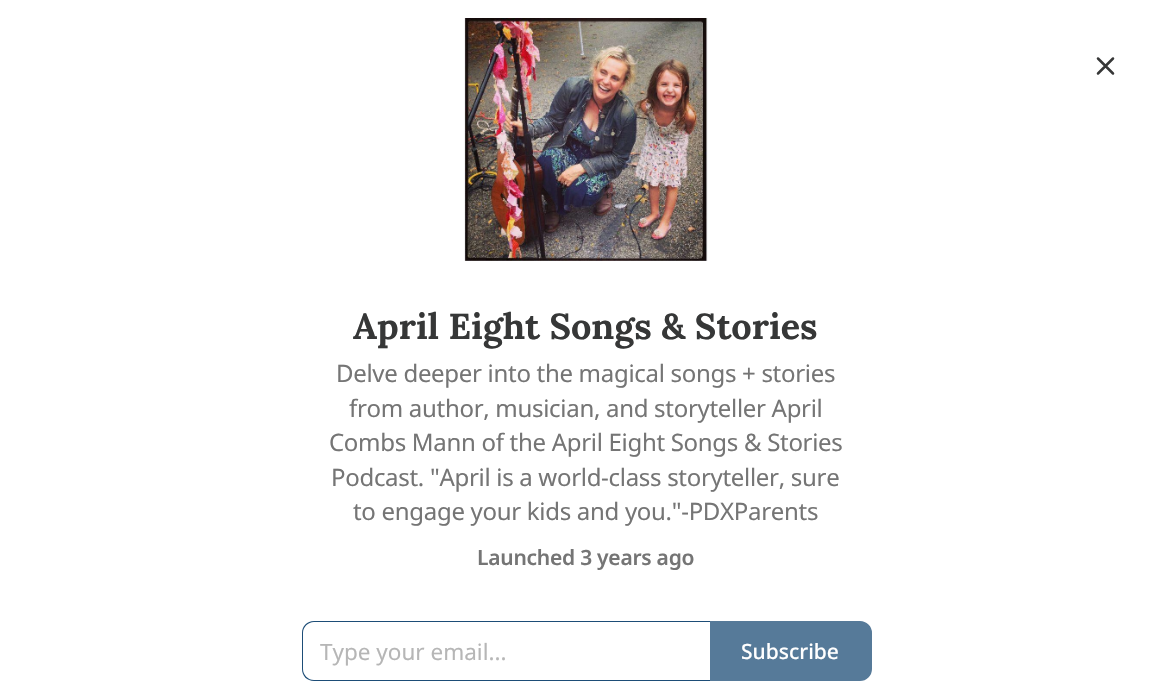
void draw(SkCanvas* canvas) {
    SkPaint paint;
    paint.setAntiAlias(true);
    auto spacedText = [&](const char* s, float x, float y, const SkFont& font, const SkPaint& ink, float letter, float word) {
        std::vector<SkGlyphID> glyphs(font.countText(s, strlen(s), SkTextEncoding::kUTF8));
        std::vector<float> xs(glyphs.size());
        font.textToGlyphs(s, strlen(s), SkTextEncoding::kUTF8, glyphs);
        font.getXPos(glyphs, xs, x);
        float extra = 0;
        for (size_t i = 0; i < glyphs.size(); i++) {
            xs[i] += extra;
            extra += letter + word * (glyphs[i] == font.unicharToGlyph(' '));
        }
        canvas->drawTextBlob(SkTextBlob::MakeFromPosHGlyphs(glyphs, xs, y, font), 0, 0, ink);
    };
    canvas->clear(0xFFFFFFFF);
    canvas->drawImageRect(SkImages::DeferredFromEncodedData(SkData::MakeFromFileName("img1.png")), SkRect::MakeXYWH(464, 18, 244, 243), SkSamplingOptions());
    paint.setStyle(SkPaint::kStroke_Style);
    paint.setStrokeWidth(2.5f);
    paint.setStrokeCap(SkPaint::kRound_Cap);
    paint.setStrokeJoin(SkPaint::kRound_Join);
    paint.setColor(0xFF363737);
    canvas->drawPath(SkPathBuilder().moveTo(1113, 58.5f).lineTo(1098, 73.5f).moveTo(1098, 58.5f).lineTo(1113, 73.5f).detach(), paint);
    SkFont font1(fontMgr->matchFamilyStyle("Lora", SkFontStyle::Bold()), 36);
    font1.setSubpixel(true);
    paint.setStyle(SkPaint::kFill_Style);
    canvas->drawString("April Eight Songs & Stories", 353, 339, font1, paint);
    SkFont font2(fontMgr->matchFamilyStyle("Noto Sans", SkFontStyle::Normal()), 24);
    font2.setSubpixel(true);
    paint.setColor(0xFF757575);
    spacedText("Delve deeper into the magical songs + stories", 336, 382, font2, paint, -0.3f, 0);
    spacedText("from author, musician, and storyteller April", 349, 417, font2, paint, -0.3f, 0);
    spacedText("Combs Mann of the April Eight Songs & Stories", 329, 451, font2, paint, -0.3f, 0);
    spacedText("Podcast. \"April is a world-class storyteller, sure", 331, 486, font2, paint, -0.3f, 0);
    spacedText("to engage your kids and you.\"-PDXParents", 353, 520, font2, paint, -0.3f, 0);
    SkFont font3(fontMgr->matchFamilyStyle("Noto Sans", SkFontStyle(600, SkFontStyle::kNormal_Width, SkFontStyle::kUpright_Slant)), 21);
    font3.setSubpixel(true);
    spacedText("Launched 3 years ago", 477, 565, font3, paint, -0.25f, 0);
    paint.setColor(0xFF1D4D77);
    canvas->drawPath(SkPathBuilder(SkPathFillType::kEvenOdd).moveTo(314, 621).lineTo(710, 621).lineTo(710, 681).lineTo(314, 681).cubicTo(307, 681, 302, 676, 302, 669).lineTo(302, 633).cubicTo(302, 626, 307, 621, 314, 621).close().moveTo(314, 622).lineTo(710, 622).lineTo(710, 680).lineTo(314, 680).cubicTo(308, 680, 303, 675, 303, 669).lineTo(303, 633).cubicTo(303, 627, 308, 622, 314, 622).close().detach(), paint);
    SkFont font4(fontMgr->matchFamilyStyle("Noto Sans", SkFontStyle::Normal()), 22.5f);
    font4.setSubpixel(true);
    paint.setColor(0xFFB6B6B6);
    canvas->drawString("Type your email...", 320, 660, font4, paint);
    paint.setColor(0xFF567A99);
    canvas->drawPath(SkPathBuilder().moveTo(711, 622).lineTo(860, 622).cubicTo(866, 622, 871, 627, 871, 633).lineTo(871, 669).cubicTo(871, 675, 866, 680, 860, 680).lineTo(711, 680).close().detach(), paint);
    paint.setStyle(SkPaint::kStroke_Style);
    paint.setStrokeWidth(2);
    paint.setStrokeCap(SkPaint::kButt_Cap);
    paint.setStrokeJoin(SkPaint::kMiter_Join);
    canvas->drawPath(SkPathBuilder().moveTo(711, 622).lineTo(860, 622).cubicTo(866, 622, 871, 627, 871, 633).lineTo(871, 669).cubicTo(871, 675, 866, 680, 860, 680).lineTo(711, 680).close().detach(), paint);
    SkFont font5(fontMgr->matchFamilyStyle("Noto Sans", SkFontStyle(500, SkFontStyle::kNormal_Width, SkFontStyle::kUpright_Slant)), 21);
    font5.setSubpixel(true);
    paint.setStyle(SkPaint::kFill_Style);
    paint.setColor(0xFFFFFFFF);
    canvas->drawString("Subscribe", 741, 659, font5, paint);
}
